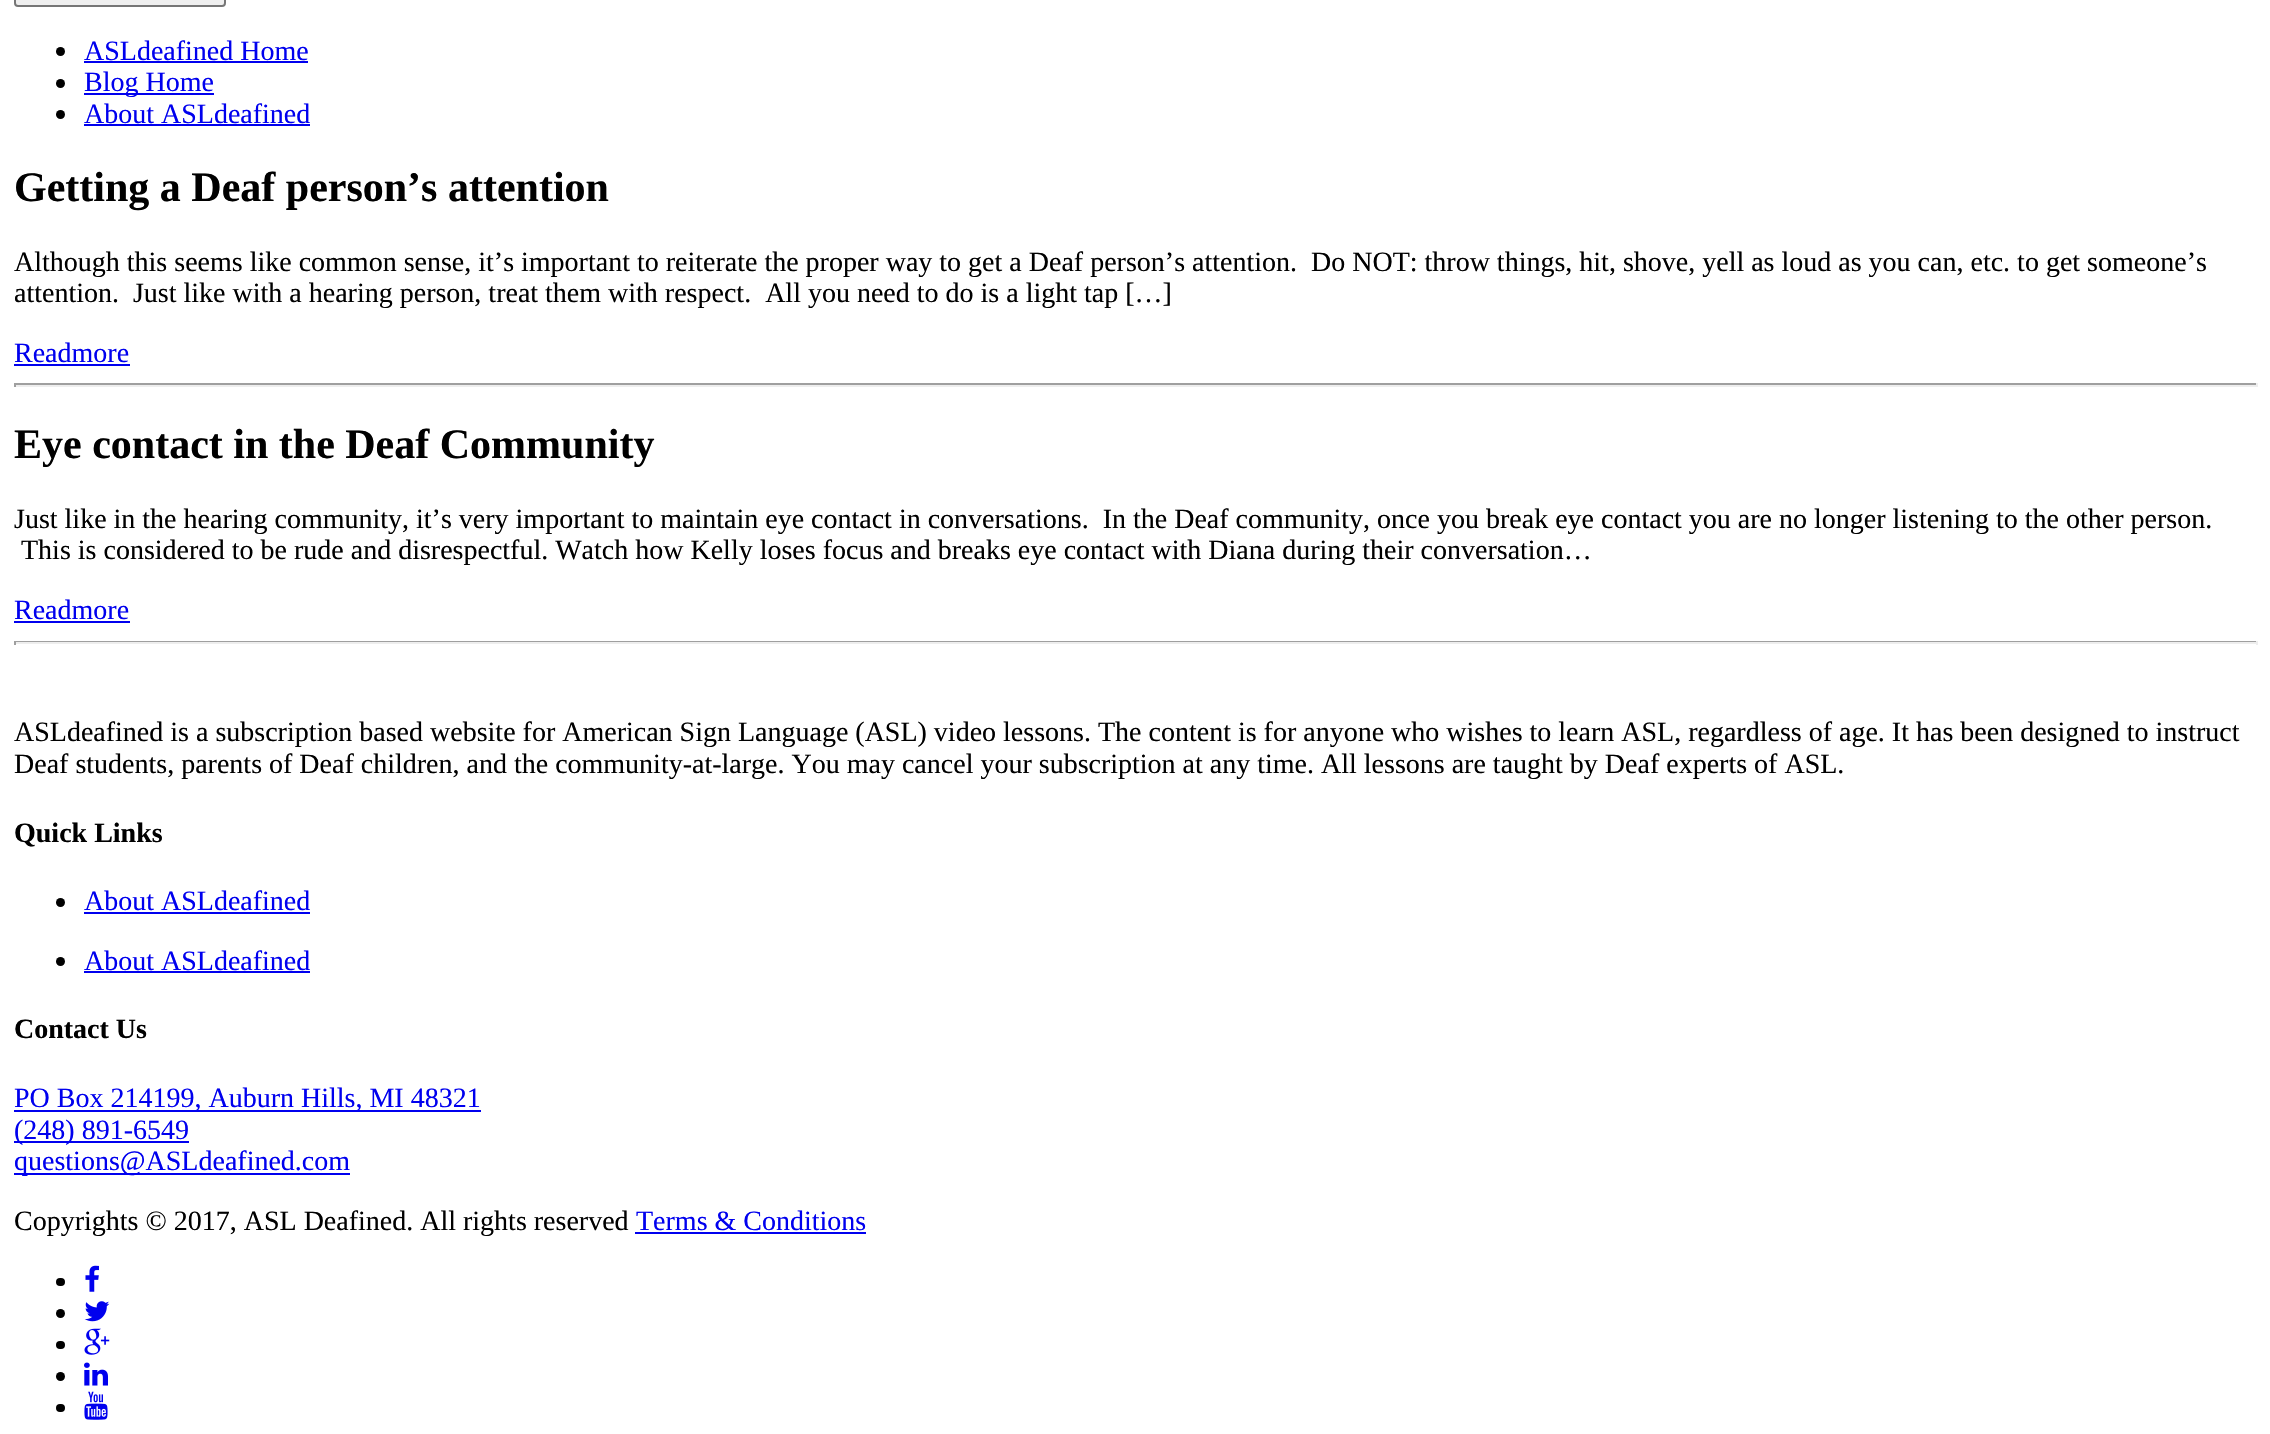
void draw(SkCanvas* canvas) {
    SkPaint paint;
    paint.setAntiAlias(true);
    canvas->clear(0xFFFFFFFF);
    paint.setColor(0xFFEFEFEF);
    canvas->drawRoundRect(SkRect::MakeXYWH(15, -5, 210, 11), 3, 3, paint);
    paint.setStyle(SkPaint::kStroke_Style);
    paint.setStrokeWidth(2);
    paint.setColor(0xFF767676);
    canvas->drawRoundRect(SkRect::MakeXYWH(15, -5, 210, 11), 3, 3, paint);
    paint.setStyle(SkPaint::kFill_Style);
    paint.setColor(0xFF000000);
    canvas->drawCircle(60.5f, 51.5f, 4.5f, paint);
    SkFont font1(fontMgr->matchFamilyStyle("Liberation Serif", SkFontStyle::Normal()), 28);
    font1.setSubpixel(true);
    paint.setColor(0xFF0000EE);
    canvas->drawString("ASLdeafined Home", 84, 60, font1, paint);
    canvas->drawRect(SkRect::MakeXYWH(84, 61, 224, 2), paint);
    paint.setColor(0xFF000000);
    canvas->drawCircle(60.5f, 83.5f, 4.5f, paint);
    paint.setColor(0xFF0000EE);
    canvas->drawRect(SkRect::MakeXYWH(84, 93, 130, 2), paint);
    canvas->drawString("Blog Home", 84, 91, font1, paint);
    paint.setColor(0xFF000000);
    canvas->drawCircle(60.5f, 114.5f, 4.5f, paint);
    paint.setColor(0xFF0000EE);
    canvas->drawString("About ASLdeafined", 84, 123, font1, paint);
    canvas->drawRect(SkRect::MakeXYWH(84, 124, 226, 2), paint);
    SkFont font2(fontMgr->matchFamilyStyle("Liberation Serif", SkFontStyle::Bold()), 42);
    font2.setSubpixel(true);
    paint.setColor(0xFF000000);
    canvas->drawString("Getting a Deaf person’s attention", 14, 201, font2, paint);
    canvas->drawString("Although this seems like common sense, it’s important to reiterate the proper way to get a Deaf person’s attention.  Do NOT: throw things, hit, shove, yell as loud as you can, etc. to get someone’s", 14, 271, font1, paint);
    canvas->drawString("attention.  Just like with a hearing person, treat them with respect.  All you need to do is a light tap […]", 14, 302, font1, paint);
    paint.setColor(0xFF0000EE);
    canvas->drawString("Readmore", 14, 362, font1, paint);
    canvas->drawRect(SkRect::MakeXYWH(14, 364, 116, 2), paint);
    paint.setColor(0xFF9F9F9F);
    canvas->drawRect(SkRect::MakeXYWH(14, 383, 2244, 2), paint);
    paint.setColor(0xFFEEEEEE);
    canvas->drawRect(SkRect::MakeXYWH(2256, 383, 2, 4), paint);
    canvas->drawRect(SkRect::MakeXYWH(14, 385, 2244, 2), paint);
    paint.setColor(0xFF9F9F9F);
    canvas->drawRect(SkRect::MakeXYWH(14, 383, 2, 4), paint);
    paint.setColor(0xFF000000);
    canvas->drawString("Eye contact in the Deaf Community", 14, 458, font2, paint);
    canvas->drawString("Just like in the hearing community, it’s very important to maintain eye contact in conversations.  In the Deaf community, once you break eye contact you are no longer listening to the other person.", 14, 528, font1, paint);
    canvas->drawString("This is considered to be rude and disrespectful. Watch how Kelly loses focus and breaks eye contact with Diana during their conversation…", 21, 559, font1, paint);
    paint.setColor(0xFF0000EE);
    canvas->drawString("Readmore", 14, 619, font1, paint);
    canvas->drawRect(SkRect::MakeXYWH(14, 621, 116, 2), paint);
    paint.setColor(0xFF9F9F9F);
    canvas->drawRect(SkRect::MakeXYWH(14, 641, 2244, 1), paint);
    paint.setColor(0xFFEEEEEE);
    canvas->drawRect(SkRect::MakeXYWH(2256, 641, 2, 4), paint);
    canvas->drawRect(SkRect::MakeXYWH(14, 642, 2244, 2), paint);
    paint.setColor(0xFF9F9F9F);
    canvas->drawRect(SkRect::MakeXYWH(14, 641, 2, 4), paint);
    paint.setColor(0xFF000000);
    canvas->drawString("ASLdeafined is a subscription based website for American Sign Language (ASL) video lessons. The content is for anyone who wishes to learn ASL, regardless of age. It has been designed to instruct", 14, 741, font1, paint);
    canvas->drawString("Deaf students, parents of Deaf children, and the community-at-large. You may cancel your subscription at any time. All lessons are taught by Deaf experts of ASL.", 14, 773, font1, paint);
    SkFont font3(fontMgr->matchFamilyStyle("Liberation Serif", SkFontStyle::Bold()), 28);
    font3.setSubpixel(true);
    canvas->drawString("Quick Links", 14, 842, font3, paint);
    canvas->drawCircle(60.5f, 902.5f, 4.5f, paint);
    paint.setColor(0xFF0000EE);
    canvas->drawString("About ASLdeafined", 84, 910, font1, paint);
    canvas->drawRect(SkRect::MakeXYWH(84, 912, 226, 2), paint);
    paint.setColor(0xFF000000);
    canvas->drawCircle(60.5f, 961.5f, 4.5f, paint);
    paint.setColor(0xFF0000EE);
    canvas->drawString("About ASLdeafined", 84, 970, font1, paint);
    canvas->drawRect(SkRect::MakeXYWH(84, 971, 226, 2), paint);
    paint.setColor(0xFF000000);
    canvas->drawString("Contact Us", 14, 1038, font3, paint);
    paint.setColor(0xFF0000EE);
    canvas->drawRect(SkRect::MakeXYWH(14, 1110, 467, 2), paint);
    canvas->drawString("PO Box 214199, Auburn Hills, MI 48321", 14, 1107, font1, paint);
    canvas->drawRect(SkRect::MakeXYWH(14, 1141, 175, 2), paint);
    canvas->drawString("(248) 891-6549", 14, 1139, font1, paint);
    canvas->drawRect(SkRect::MakeXYWH(14, 1173, 336, 2), paint);
    canvas->drawString("questions@ASLdeafined.com", 14, 1170, font1, paint);
    paint.setColor(0xFF000000);
    canvas->drawString("Copyrights © 2017, ASL Deafined. All rights reserved", 14, 1230, font1, paint);
    paint.setColor(0xFF0000EE);
    canvas->drawString("Terms & Conditions", 636, 1230, font1, paint);
    canvas->drawRect(SkRect::MakeXYWH(635, 1232, 231, 2), paint);
    paint.setColor(0xFF000000);
    canvas->drawRoundRect(SkRect::MakeXYWH(56, 1278, 9, 8), 4, 4, paint);
    canvas->drawImageRect(SkImages::DeferredFromEncodedData(SkData::MakeFromFileName("img1.png")), SkRect::MakeXYWH(85, 1265, 14, 27), SkSamplingOptions());
    canvas->drawCircle(60.5f, 1313.5f, 4.5f, paint);
    canvas->drawImageRect(SkImages::DeferredFromEncodedData(SkData::MakeFromFileName("img2.png")), SkRect::MakeXYWH(84, 1301, 26, 21), SkSamplingOptions());
    canvas->drawRoundRect(SkRect::MakeXYWH(56, 1341, 9, 8), 4, 4, paint);
    canvas->drawImageRect(SkImages::DeferredFromEncodedData(SkData::MakeFromFileName("img3.png")), SkRect::MakeXYWH(84, 1328, 26, 27), SkSamplingOptions());
    canvas->drawCircle(60.5f, 1376.5f, 4.5f, paint);
    canvas->drawImageRect(SkImages::DeferredFromEncodedData(SkData::MakeFromFileName("img4.png")), SkRect::MakeXYWH(84, 1362, 24, 24), SkSamplingOptions());
    canvas->drawRoundRect(SkRect::MakeXYWH(56, 1404, 9, 8), 4, 4, paint);
    canvas->drawImageRect(SkImages::DeferredFromEncodedData(SkData::MakeFromFileName("img5.png")), SkRect::MakeXYWH(84, 1391, 24, 29), SkSamplingOptions());
}
